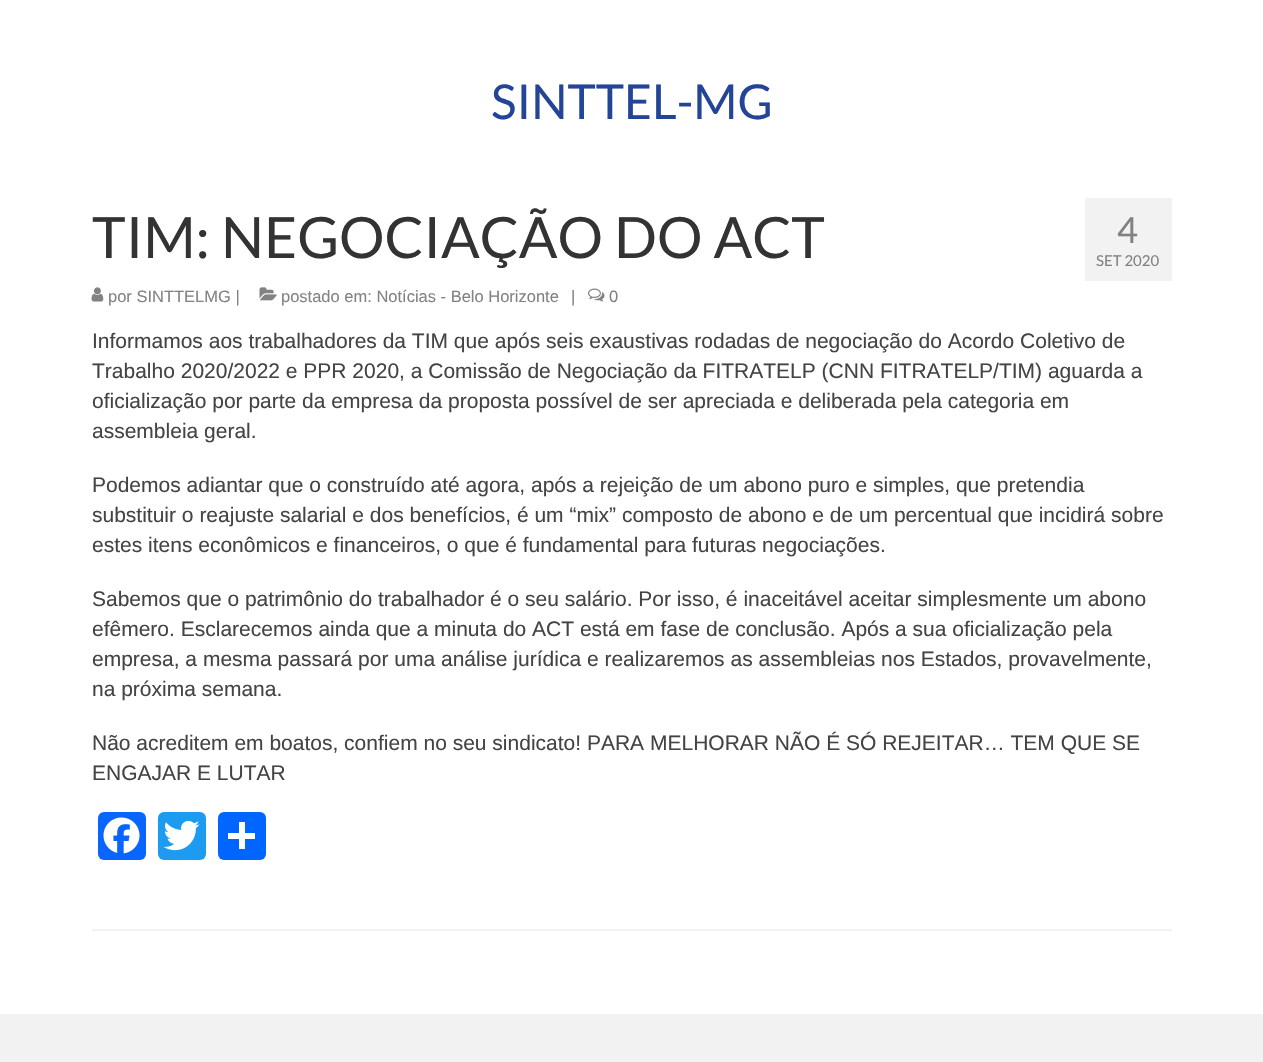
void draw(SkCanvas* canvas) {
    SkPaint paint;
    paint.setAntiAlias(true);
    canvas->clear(0xFFFFFFFF);
    SkFont font1(fontMgr->matchFamilyStyle("Lato", SkFontStyle::Normal()), 48);
    font1.setSubpixel(true);
    paint.setColor(0xFF244597);
    canvas->drawString("SINTTEL-MG", 491, 119, font1, paint);
    SkFont font2(fontMgr->matchFamilyStyle("Lato", SkFontStyle::Normal()), 57);
    font2.setSubpixel(true);
    paint.setColor(0xFF333333);
    canvas->drawString("TIM: NEGOCIAÇÃO DO ACT", 92, 258, font2, paint);
    canvas->drawImageRect(SkImages::DeferredFromEncodedData(SkData::MakeFromFileName("img1.png")), SkRect::MakeXYWH(91, 287, 13, 15), SkSamplingOptions());
    SkFont font3(fontMgr->matchFamilyStyle("Liberation Sans", SkFontStyle::Normal()), 16.5f);
    font3.setSubpixel(true);
    paint.setColor(0xFF828282);
    canvas->drawString("por SINTTELMG |", 108, 302, font3, paint);
    canvas->drawImageRect(SkImages::DeferredFromEncodedData(SkData::MakeFromFileName("img2.png")), SkRect::MakeXYWH(259, 287, 18, 14), SkSamplingOptions());
    canvas->drawString("postado em: Notícias - Belo Horizonte", 281, 302, font3, paint);
    canvas->drawString("|", 571, 302, font3, paint);
    canvas->drawImageRect(SkImages::DeferredFromEncodedData(SkData::MakeFromFileName("img3.png")), SkRect::MakeXYWH(588, 288, 17, 14), SkSamplingOptions());
    canvas->drawString("0", 609, 302, font3, paint);
    paint.setColor(0xFFF2F2F2);
    canvas->drawRect(SkRect::MakeXYWH(1085, 198, 87, 83), paint);
    SkFont font4(fontMgr->matchFamilyStyle("Lato", SkFontStyle::Normal()), 36);
    font4.setSubpixel(true);
    paint.setColor(0xFF828282);
    canvas->drawString("4", 1117, 243, font4, paint);
    SkFont font5(fontMgr->matchFamilyStyle("Lato", SkFontStyle::Normal()), 15);
    font5.setSubpixel(true);
    canvas->drawString("SET 2020", 1096, 266, font5, paint);
    SkFont font6(fontMgr->matchFamilyStyle("Liberation Sans", SkFontStyle::Normal()), 21);
    font6.setSubpixel(true);
    paint.setColor(0xFF444444);
    canvas->drawString("Informamos aos trabalhadores da TIM que após seis exaustivas rodadas de negociação do Acordo Coletivo de", 92, 348, font6, paint);
    canvas->drawString("Trabalho 2020/2022 e PPR 2020, a Comissão de Negociação da FITRATELP (CNN FITRATELP/TIM) aguarda a", 92, 378, font6, paint);
    canvas->drawString("oficialização por parte da empresa da proposta possível de ser apreciada e deliberada pela categoria em", 92, 408, font6, paint);
    canvas->drawString("assembleia geral.", 92, 438, font6, paint);
    canvas->drawString("Podemos adiantar que o construído até agora, após a rejeição de um abono puro e simples, que pretendia", 92, 492, font6, paint);
    canvas->drawString("substituir o reajuste salarial e dos benefícios, é um “mix” composto de abono e de um percentual que incidirá sobre", 92, 522, font6, paint);
    canvas->drawString("estes itens econômicos e financeiros, o que é fundamental para futuras negociações.", 92, 552, font6, paint);
    canvas->drawString("Sabemos que o patrimônio do trabalhador é o seu salário. Por isso, é inaceitável aceitar simplesmente um abono", 92, 606, font6, paint);
    canvas->drawString("efêmero. Esclarecemos ainda que a minuta do ACT está em fase de conclusão. Após a sua oficialização pela", 92, 636, font6, paint);
    canvas->drawString("empresa, a mesma passará por uma análise jurídica e realizaremos as assembleias nos Estados, provavelmente,", 92, 666, font6, paint);
    canvas->drawString("na próxima semana.", 92, 696, font6, paint);
    canvas->drawString("Não acreditem em boatos, confiem no seu sindicato! PARA MELHORAR NÃO É SÓ REJEITAR… TEM QUE SE", 92, 750, font6, paint);
    canvas->drawString("ENGAJAR E LUTAR", 92, 780, font6, paint);
    paint.setColor(0xFF0866FF);
    canvas->drawRoundRect(SkRect::MakeXYWH(98, 812, 48, 48), 6, 6, paint);
    canvas->drawImageRect(SkImages::DeferredFromEncodedData(SkData::MakeFromFileName("img4.png")), SkRect::MakeXYWH(103, 817, 37, 37), SkSamplingOptions());
    paint.setColor(0xFF1D9BF0);
    canvas->drawRoundRect(SkRect::MakeXYWH(158, 812, 48, 48), 6, 6, paint);
    canvas->drawImageRect(SkImages::DeferredFromEncodedData(SkData::MakeFromFileName("img5.png")), SkRect::MakeXYWH(163, 820, 37, 31), SkSamplingOptions());
    paint.setColor(0xFF0166FF);
    canvas->drawRoundRect(SkRect::MakeXYWH(218, 812, 48, 48), 6, 6, paint);
    paint.setColor(0xFFFFFFFF);
    canvas->drawRect(SkRect::MakeXYWH(239, 822, 6, 27), paint);
    canvas->drawRect(SkRect::MakeXYWH(228, 833, 27, 6), paint);
    paint.setColor(0xFFF2F2F2);
    canvas->drawRect(SkRect::MakeXYWH(92, 929, 1080, 2), paint);
    canvas->drawRect(SkRect::MakeXYWH(0, 1014, 1263, 48), paint);
}
